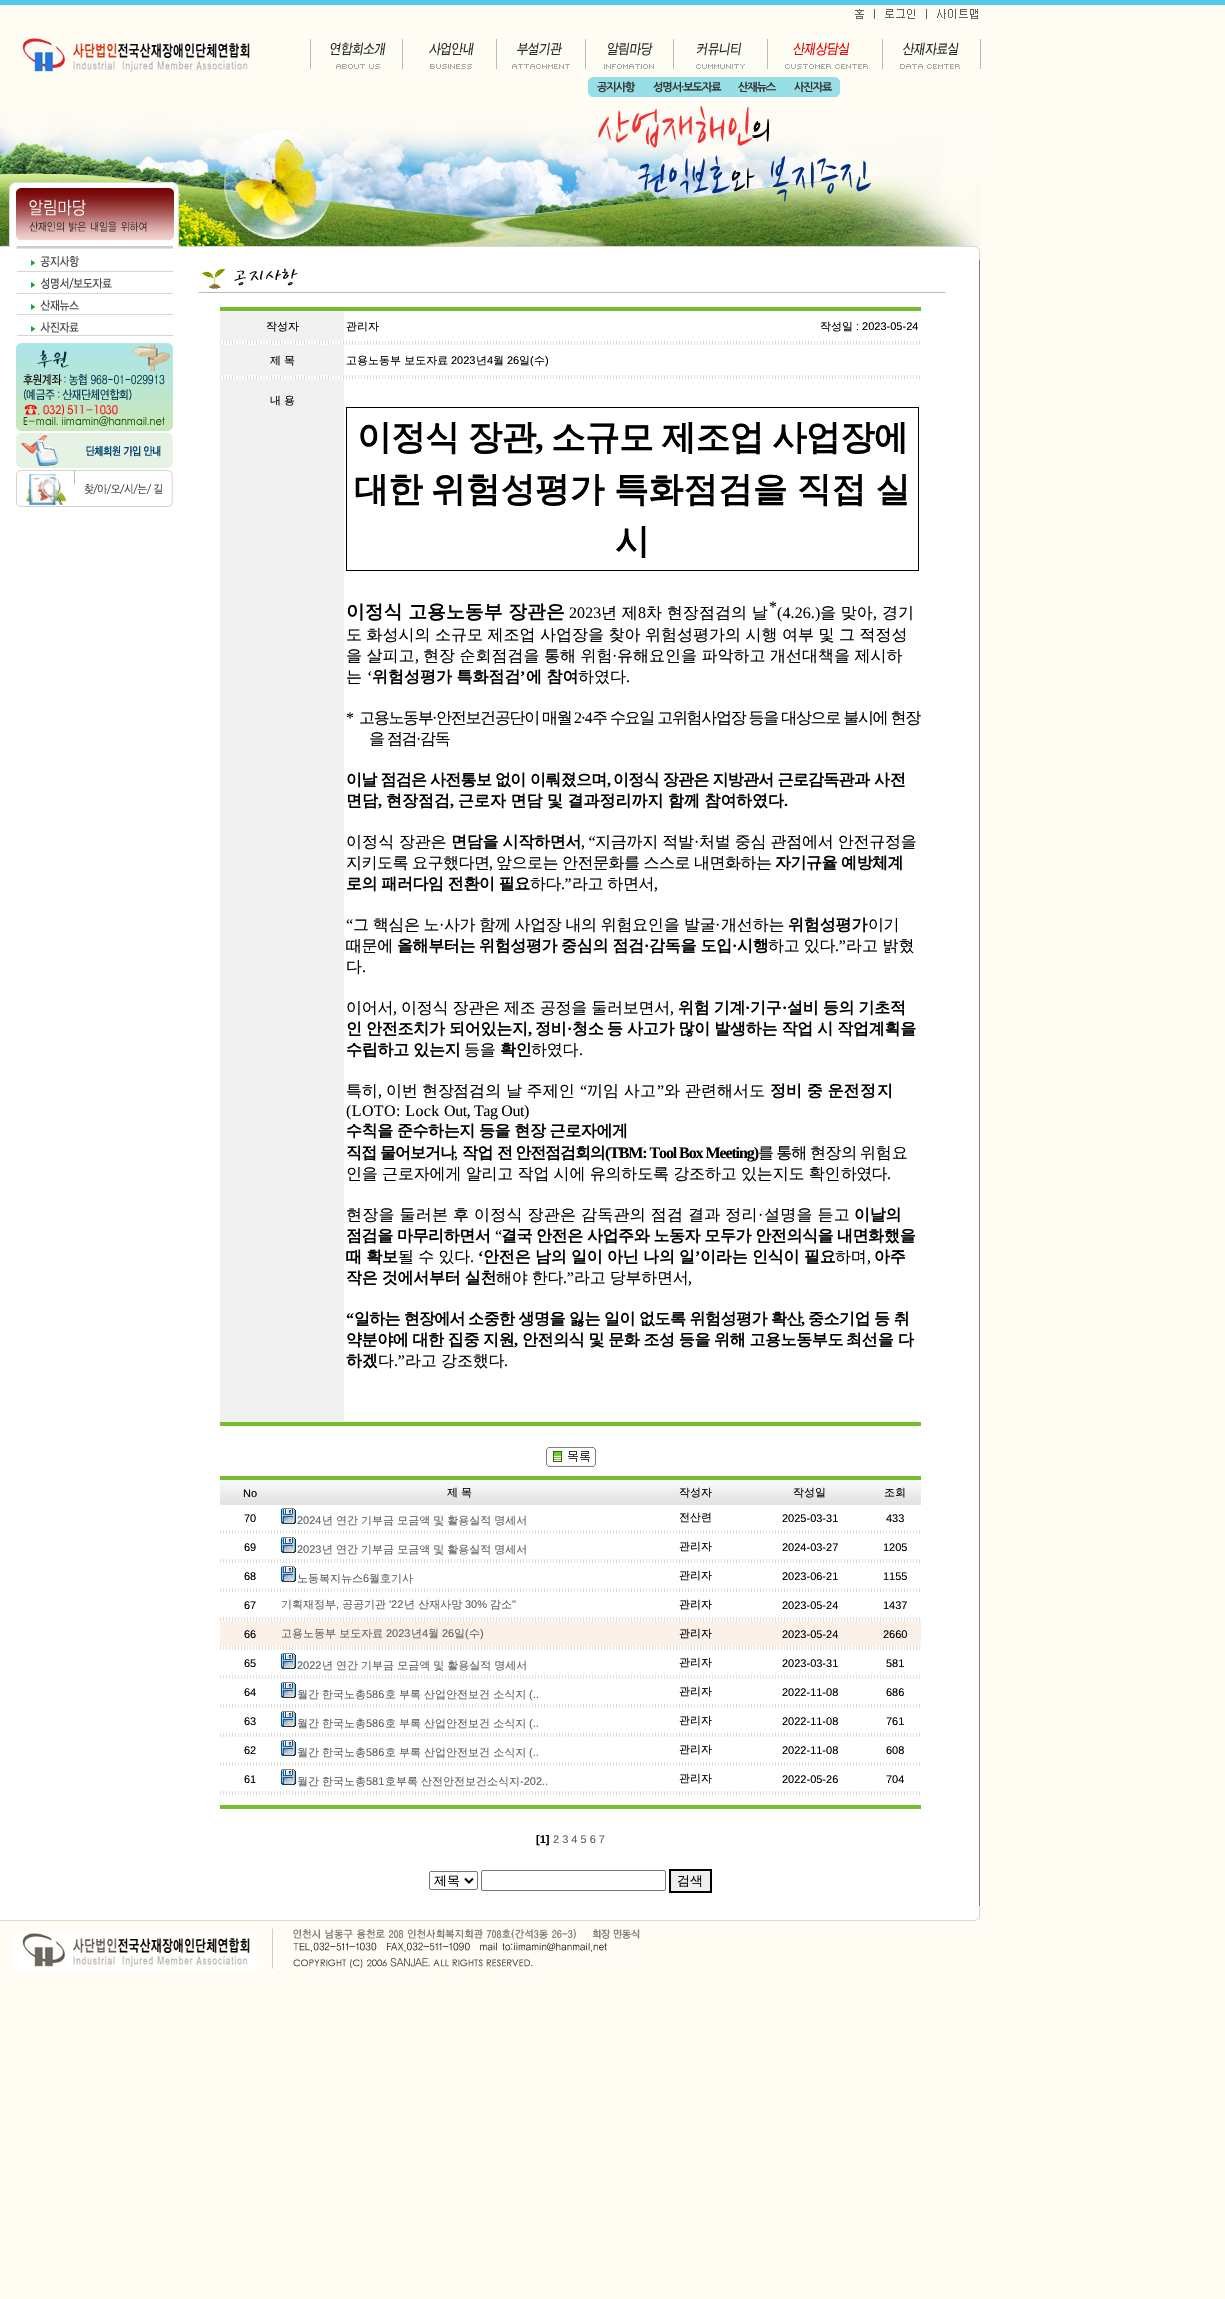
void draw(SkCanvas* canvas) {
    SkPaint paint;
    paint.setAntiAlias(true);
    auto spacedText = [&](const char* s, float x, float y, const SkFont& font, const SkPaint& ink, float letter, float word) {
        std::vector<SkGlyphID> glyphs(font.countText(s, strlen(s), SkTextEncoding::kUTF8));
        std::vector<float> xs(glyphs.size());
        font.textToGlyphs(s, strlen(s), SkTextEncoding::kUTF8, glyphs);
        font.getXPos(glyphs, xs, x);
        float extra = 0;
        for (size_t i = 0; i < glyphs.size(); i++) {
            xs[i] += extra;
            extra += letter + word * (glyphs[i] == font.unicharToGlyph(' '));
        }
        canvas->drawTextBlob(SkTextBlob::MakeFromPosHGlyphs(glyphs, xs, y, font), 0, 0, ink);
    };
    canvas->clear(0xFFFFFCF4);
    paint.setColor(0xFF51CCE7);
    canvas->drawRect(SkRect::MakeXYWH(0, 0, 1225, 5), paint);
    canvas->drawImageRect(SkImages::DeferredFromEncodedData(SkData::MakeFromFileName("img1.png")), SkRect::MakeXYWH(855, 9, 123, 10), SkSamplingOptions());
    canvas->drawImageRect(SkImages::DeferredFromEncodedData(SkData::MakeFromFileName("img2.png")), SkRect::MakeXYWH(22, 38, 228, 34), SkSamplingOptions());
    canvas->drawImageRect(SkImages::DeferredFromEncodedData(SkData::MakeFromFileName("img3.png")), SkRect::MakeXYWH(310, 39, 671, 32), SkSamplingOptions());
    canvas->drawImageRect(SkImages::DeferredFromEncodedData(SkData::MakeFromFileName("img4.png")), SkRect::MakeXYWH(330, 42, 56, 29), SkSamplingOptions());
    canvas->drawImageRect(SkImages::DeferredFromEncodedData(SkData::MakeFromFileName("img5.png")), SkRect::MakeXYWH(429, 42, 45, 27), SkSamplingOptions());
    canvas->drawImageRect(SkImages::DeferredFromEncodedData(SkData::MakeFromFileName("img6.png")), SkRect::MakeXYWH(512, 42, 58, 27), SkSamplingOptions());
    canvas->drawImageRect(SkImages::DeferredFromEncodedData(SkData::MakeFromFileName("img7.png")), SkRect::MakeXYWH(696, 42, 49, 30), SkSamplingOptions());
    canvas->drawImageRect(SkImages::DeferredFromEncodedData(SkData::MakeFromFileName("img8.png")), SkRect::MakeXYWH(785, 41, 83, 31), SkSamplingOptions());
    canvas->drawImageRect(SkImages::DeferredFromEncodedData(SkData::MakeFromFileName("img9.png")), SkRect::MakeXYWH(900, 42, 60, 27), SkSamplingOptions());
    canvas->drawImageRect(SkImages::DeferredFromEncodedData(SkData::MakeFromFileName("img10.png")), SkRect::MakeXYWH(604, 42, 50, 30), SkSamplingOptions());
    paint.setColor(0xFF97DFE6);
    canvas->drawPath(SkPathBuilder().moveTo(593, 77.5f).lineTo(643.5f, 77.5f).lineTo(643.5f, 96.5f).lineTo(593, 96.5f).cubicTo(590.5f, 96.5f, 588.5f, 94.5f, 588.5f, 92).lineTo(588.5f, 82).cubicTo(588.5f, 79.5f, 590.5f, 77.5f, 593, 77.5f).close().detach(), paint);
    paint.setStyle(SkPaint::kStroke_Style);
    paint.setStrokeWidth(1);
    canvas->drawPath(SkPathBuilder().moveTo(593, 77.5f).lineTo(643.5f, 77.5f).lineTo(643.5f, 96.5f).lineTo(593, 96.5f).cubicTo(590.5f, 96.5f, 588.5f, 94.5f, 588.5f, 92).lineTo(588.5f, 82).cubicTo(588.5f, 79.5f, 590.5f, 77.5f, 593, 77.5f).close().detach(), paint);
    SkFont font1(fontMgr->matchFamilyStyle("NanumGothic", SkFontStyle::Bold()), 11);
    font1.setSubpixel(true);
    paint.setStyle(SkPaint::kFill_Style);
    paint.setColor(0xFF333333);
    spacedText("공지사항", 597, 91, font1, paint, -1, 0);
    paint.setColor(0xFF97DFE6);
    canvas->drawRect(SkRect::MakeXYWH(644, 77, 141, 20), paint);
    paint.setColor(0xFF333333);
    spacedText("성명서·보도자료", 653, 91, font1, paint, -1, 0);
    spacedText("산재뉴스", 738, 91, font1, paint, -1, 0);
    paint.setColor(0xFF97DFE6);
    canvas->drawPath(SkPathBuilder().moveTo(785.5f, 77.5f).lineTo(835, 77.5f).cubicTo(837.5f, 77.5f, 839.5f, 79.5f, 839.5f, 82).lineTo(839.5f, 92).cubicTo(839.5f, 94.5f, 837.5f, 96.5f, 835, 96.5f).lineTo(785.5f, 96.5f).close().detach(), paint);
    paint.setStyle(SkPaint::kStroke_Style);
    canvas->drawPath(SkPathBuilder().moveTo(785.5f, 77.5f).lineTo(835, 77.5f).cubicTo(837.5f, 77.5f, 839.5f, 79.5f, 839.5f, 82).lineTo(839.5f, 92).cubicTo(839.5f, 94.5f, 837.5f, 96.5f, 835, 96.5f).lineTo(785.5f, 96.5f).close().detach(), paint);
    paint.setStyle(SkPaint::kFill_Style);
    paint.setColor(0xFF333333);
    spacedText("사진자료", 794, 91, font1, paint, -1, 0);
    canvas->drawImageRect(SkImages::DeferredFromEncodedData(SkData::MakeFromFileName("img12.png")), SkRect::MakeXYWH(0, 113, 981, 133), SkSamplingOptions());
    canvas->drawImageRect(SkImages::DeferredFromEncodedData(SkData::MakeFromFileName("img11.png")), SkRect::MakeXYWH(598, 106, 274, 96), SkSamplingOptions());
    paint.setColor(0xFFFFFFFF);
    canvas->drawRect(SkRect::MakeXYWH(0, 260, 981, 1646), paint);
    canvas->drawImageRect(SkImages::DeferredFromEncodedData(SkData::MakeFromFileName("img13.png")), SkRect::MakeXYWH(0, 246, 179, 26), SkSamplingOptions());
    canvas->drawImageRect(SkImages::DeferredFromEncodedData(SkData::MakeFromFileName("img14.png")), SkRect::MakeXYWH(16, 278, 157, 16), SkSamplingOptions());
    canvas->drawImageRect(SkImages::DeferredFromEncodedData(SkData::MakeFromFileName("img15.png")), SkRect::MakeXYWH(16, 300, 157, 15), SkSamplingOptions());
    canvas->drawImageRect(SkImages::DeferredFromEncodedData(SkData::MakeFromFileName("img16.png")), SkRect::MakeXYWH(16, 322, 157, 14), SkSamplingOptions());
    canvas->drawImageRect(SkImages::DeferredFromEncodedData(SkData::MakeFromFileName("img17.png")), SkRect::MakeXYWH(16, 343, 157, 88), SkSamplingOptions());
    canvas->drawImageRect(SkImages::DeferredFromEncodedData(SkData::MakeFromFileName("img18.png")), SkRect::MakeXYWH(16, 433, 157, 35), SkSamplingOptions());
    canvas->drawImageRect(SkImages::DeferredFromEncodedData(SkData::MakeFromFileName("img19.png")), SkRect::MakeXYWH(16, 470, 157, 37), SkSamplingOptions());
    canvas->drawImageRect(SkImages::DeferredFromEncodedData(SkData::MakeFromFileName("img20.png")), SkRect::MakeXYWH(179, 246, 802, 14), SkSamplingOptions());
    paint.setColor(0xFF808080);
    canvas->drawRect(SkRect::MakeXYWH(979, 260, 1, 1646), paint);
    canvas->drawImageRect(SkImages::DeferredFromEncodedData(SkData::MakeFromFileName("img21.png")), SkRect::MakeXYWH(198, 268, 748, 25), SkSamplingOptions());
    paint.setColor(0xFF75BC2E);
    canvas->drawRect(SkRect::MakeXYWH(220, 307, 701, 4), paint);
    paint.setColor(0xFFF1F1F1);
    canvas->drawRect(SkRect::MakeXYWH(220, 311, 124, 30), paint);
    SkFont font2(fontMgr->matchFamilyStyle("WenQuanYi Zen Hei", SkFontStyle(500, SkFontStyle::kNormal_Width, SkFontStyle::kUpright_Slant)), 11);
    font2.setSubpixel(true);
    paint.setColor(0xFF000000);
    canvas->drawString("작성자", 266, 330, font2, paint);
    canvas->drawString("관리자", 346, 330, font2, paint);
    canvas->drawString("작성일", 820, 330, font2, paint);
    SkFont font3(fontMgr->matchFamilyStyle("Liberation Sans", SkFontStyle::Normal()), 11);
    font3.setSubpixel(true);
    canvas->drawString(": 2023-05-24", 856, 330, font3, paint);
    canvas->drawImageRect(SkImages::DeferredFromEncodedData(SkData::MakeFromFileName("img22.png")), SkRect::MakeXYWH(220, 341, 700, 4), SkSamplingOptions());
    paint.setColor(0xFFF1F1F1);
    canvas->drawRect(SkRect::MakeXYWH(220, 345, 124, 30), paint);
    paint.setColor(0xFF000000);
    spacedText("제 목", 270, 364, font2, paint, 0, -0.25f);
    canvas->drawString("고용노동부 보도자료", 346, 364, font2, paint);
    canvas->drawString("2023", 451, 364, font3, paint);
    canvas->drawString("년", 476, 364, font2, paint);
    canvas->drawString("4", 487, 364, font3, paint);
    canvas->drawString("월", 493, 364, font2, paint);
    canvas->drawString("26", 507, 364, font3, paint);
    canvas->drawString("일", 519, 364, font2, paint);
    canvas->drawString("(", 530, 364, font3, paint);
    canvas->drawString("수", 534, 364, font2, paint);
    canvas->drawString(")", 545, 364, font3, paint);
    canvas->drawImageRect(SkImages::DeferredFromEncodedData(SkData::MakeFromFileName("img22.png")), SkRect::MakeXYWH(220, 375, 700, 4), SkSamplingOptions());
    paint.setColor(0xFFF1F1F1);
    canvas->drawRect(SkRect::MakeXYWH(220, 379, 124, 1043), paint);
    paint.setColor(0xFF000000);
    spacedText("내 용", 270, 404, font2, paint, 0, -0.25f);
    canvas->drawRect(SkRect::MakeXYWH(346, 407, 573, 1), paint);
    canvas->drawRect(SkRect::MakeXYWH(918, 407, 1, 164), paint);
    canvas->drawRect(SkRect::MakeXYWH(346, 570, 573, 1), paint);
    canvas->drawRect(SkRect::MakeXYWH(346, 407, 1, 164), paint);
    SkFont font4(fontMgr->matchFamilyStyle("WenQuanYi Zen Hei", SkFontStyle::Bold()), 34.7f);
    font4.setSubpixel(true);
    spacedText("이정식 장관", 357, 449, font4, paint, -0.75f, -1);
    SkFont font5(fontMgr->matchFamilyStyle("Liberation Serif", SkFontStyle::Bold()), 34.7f);
    font5.setSubpixel(true);
    spacedText(",", 535, 449, font5, paint, -0.75f, 0);
    spacedText("소규모 제조업 사업장에", 551, 449, font4, paint, -0.75f, -1);
    spacedText("대한", 354, 501, font4, paint, -0.75f, 0);
    spacedText("위험성평가 특화점검을 직접 실", 431, 501, font4, paint, 0, -1);
    canvas->drawString("시", 615, 553, font4, paint);
    SkFont font6(fontMgr->matchFamilyStyle("WenQuanYi Zen Hei", SkFontStyle::Bold()), 18.75f);
    font6.setSubpixel(true);
    spacedText("이정식 고용노동부 장관은", 346, 618, font6, paint, 0.1f, 0);
    SkFont font7(fontMgr->matchFamilyStyle("Liberation Serif", SkFontStyle::Normal()), 16);
    font7.setSubpixel(true);
    spacedText("2023", 569, 618, font7, paint, 0.1f, 0);
    SkFont font8(fontMgr->matchFamilyStyle("WenQuanYi Zen Hei", SkFontStyle(500, SkFontStyle::kNormal_Width, SkFontStyle::kUpright_Slant)), 16);
    font8.setSubpixel(true);
    spacedText("년 제", 601, 618, font8, paint, 0.1f, -0.3f);
    spacedText("8", 638, 618, font7, paint, 0.1f, 0);
    spacedText("차 현장점검의 날", 646, 618, font8, paint, 0.1f, -0.3f);
    spacedText("*", 769, 612, font7, paint, 0.1f, 0);
    spacedText("(4.26.)", 777, 618, font7, paint, 0.1f, 0);
    spacedText("을 맞아", 820, 618, font8, paint, 0.1f, -0.3f);
    spacedText(",", 873, 618, font7, paint, 0.1f, 0);
    canvas->drawString("경기", 882, 618, font8, paint);
    spacedText("도 화성시의 소규모 제조업 사업장을 찾아 위험성평가의 시행 여부 및 그 적정성", 346, 640, font8, paint, 0, -0.3f);
    spacedText("을 살피고", 346, 661, font8, paint, 0, -0.3f);
    spacedText("현장 순회점검을 통해 위험", 423, 661, font8, paint, 0, -0.3f);
    canvas->drawString("·", 612, 661, font7, paint);
    spacedText("유해요인을 파악하고 개선대책을 제시하", 617, 661, font8, paint, 0, -0.3f);
    canvas->drawString(",", 415, 661, font7, paint);
    canvas->drawString("는", 346, 682, font8, paint);
    canvas->drawString("‘", 367, 682, font7, paint);
    SkFont font9(fontMgr->matchFamilyStyle("WenQuanYi Zen Hei", SkFontStyle::Bold()), 16);
    font9.setSubpixel(true);
    spacedText("위험성평가 특화점검", 372, 682, font9, paint, 0, -0.3f);
    SkFont font10(fontMgr->matchFamilyStyle("Liberation Serif", SkFontStyle::Bold()), 16);
    font10.setSubpixel(true);
    canvas->drawString("’", 520, 682, font10, paint);
    spacedText("에 참여", 526, 682, font9, paint, 0, -0.3f);
    canvas->drawString("하였다", 578, 682, font8, paint);
    canvas->drawString(".", 626, 682, font7, paint);
    spacedText("*", 346, 723, font7, paint, 0.25f, 0);
    spacedText("고용노동부", 359, 723, font8, paint, -1.3f, 0);
    spacedText("·", 432, 723, font7, paint, -1.3f, 0);
    spacedText("안전보건공단이 매월", 436, 723, font8, paint, -1.3f, -0.3f);
    spacedText("2·4", 574, 723, font7, paint, -1.3f, 0);
    spacedText("주 수요일 고위험사업장 등을 대상으로 불시에 현장", 592, 723, font8, paint, -1.3f, -0.3f);
    spacedText("을 점검", 369, 744, font8, paint, -1.3f, -0.3f);
    spacedText("·", 416, 744, font7, paint, -1.3f, 0);
    spacedText("감독", 420, 744, font8, paint, -1.3f, 0);
    spacedText("이날 점검은", 346, 785, font9, paint, -0.7f, -0.3f);
    spacedText("사전통보 없이", 430, 785, font9, paint, -0.7f, -0.3f);
    spacedText("이뤄졌으며", 530, 785, font9, paint, -0.7f, 0);
    spacedText(",", 607, 785, font10, paint, -0.7f, 0);
    spacedText("이정식 장관은 지방관서 근로감독관과", 613, 785, font9, paint, -0.7f, -0.3f);
    canvas->drawString("사전", 874, 785, font9, paint);
    canvas->drawString("면담", 346, 806, font9, paint);
    canvas->drawString(",", 378, 806, font10, paint);
    canvas->drawString("현장점검", 386, 806, font9, paint);
    canvas->drawString(",", 450, 806, font10, paint);
    spacedText("근로자 면담 및 결과정리까지 함께 참여", 458, 806, font9, paint, 0, -0.3f);
    canvas->drawString("하였다", 736, 806, font9, paint);
    canvas->drawString(".", 784, 806, font10, paint);
    spacedText("이정식", 346, 847, font8, paint, 0.1f, 0);
    spacedText("장관은", 399, 847, font8, paint, -0.25f, 0);
    spacedText("면담을 시작하면서", 451, 847, font9, paint, -0.25f, -0.3f);
    spacedText(", “", 581, 847, font7, paint, -0.25f, 0);
    spacedText("지금까지 적발", 595, 847, font8, paint, -0.25f, -0.3f);
    spacedText("·", 694, 847, font7, paint, -0.25f, 0);
    spacedText("처벌 중심 관점에서 안전규정을", 699, 847, font8, paint, -0.25f, -0.3f);
    spacedText("지키도록 요구했다면", 346, 868, font8, paint, -0.5f, -0.3f);
    spacedText(",", 489, 868, font7, paint, -0.5f, 0);
    spacedText("앞으로는 안전문화를 스스로 내면화하는", 496, 868, font8, paint, -0.5f, -0.3f);
    spacedText("자기규율", 775, 868, font9, paint, -0.5f, 0);
    spacedText("예방", 841, 868, font9, paint, -0.25f, 0);
    spacedText("체계", 872, 868, font9, paint, -0.4f, 0);
    spacedText("로의 패러다임 전환이 필요", 346, 889, font9, paint, -0.4f, -0.3f);
    spacedText("하다", 530, 889, font8, paint, -0.4f, 0);
    spacedText(".”", 561, 889, font7, paint, -0.4f, 0);
    spacedText("라고 하면서", 572, 889, font8, paint, -0.4f, -0.3f);
    spacedText(",", 654, 889, font7, paint, -0.4f, 0);
    spacedText("“", 346, 930, font7, paint, -0.4f, 0);
    spacedText("그 핵심은 노", 353, 930, font8, paint, -0.4f, -0.3f);
    spacedText("사가 함께 사업장 내의 위험", 444, 930, font8, paint, -0.4f, -0.3f);
    spacedText("요인을 발굴", 632, 930, font8, paint, -0.15f, -0.3f);
    spacedText("개선하는", 721, 930, font8, paint, -0.15f, 0);
    spacedText("위험성평가", 788, 930, font9, paint, -0.15f, 0);
    spacedText("이기", 868, 930, font8, paint, -0.4f, 0);
    spacedText("·", 439, 930, font7, paint, -0.4f, 0);
    spacedText("·", 715, 930, font7, paint, -0.15f, 0);
    spacedText("때문에", 346, 951, font8, paint, -0.4f, 0);
    spacedText("올해부터는 위험성평가", 397, 951, font9, paint, -0.4f, -0.3f);
    spacedText("중심의 점검", 561, 951, font9, paint, -0.25f, -0.3f);
    spacedText("·", 644, 951, font10, paint, -0.25f, 0);
    spacedText("감독을 도입", 649, 951, font9, paint, -0.25f, -0.3f);
    spacedText("·", 732, 951, font10, paint, -0.25f, 0);
    spacedText("시행", 737, 951, font9, paint, -0.25f, 0);
    spacedText("하고 있다", 768, 951, font8, paint, -0.25f, -0.3f);
    spacedText(".”", 835, 951, font7, paint, -0.25f, 0);
    spacedText("라", 846, 951, font8, paint, -0.25f, 0);
    spacedText("고 밝혔", 862, 951, font8, paint, 0, -0.3f);
    canvas->drawString("다", 346, 972, font8, paint);
    canvas->drawString(".", 362, 972, font7, paint);
    spacedText("이어서", 346, 1013, font8, paint, -0.25f, 0);
    spacedText("이정식 장관은 제조 공정을 둘러보면서", 401, 1013, font8, paint, -0.25f, -0.3f);
    spacedText("위험 기계", 678, 1013, font9, paint, -0.25f, -0.3f);
    spacedText("·", 745, 1013, font10, paint, -0.25f, 0);
    spacedText("기구", 750, 1013, font9, paint, -0.25f, 0);
    spacedText("·", 782, 1013, font10, paint, -0.25f, 0);
    spacedText("설비 등의 기초적", 787, 1013, font9, paint, -0.25f, -0.3f);
    canvas->drawString(",", 393, 1013, font7, paint);
    canvas->drawString(",", 670, 1013, font7, paint);
    spacedText("인 안전조치가 되어있는지", 346, 1034, font9, paint, -0.25f, -0.3f);
    spacedText("정비", 535, 1034, font9, paint, -0.25f, 0);
    spacedText("·", 567, 1034, font10, paint, -0.25f, 0);
    spacedText("청소", 572, 1034, font9, paint, -0.25f, 0);
    spacedText("등 사고가 많이 발생하는 작업 시 작업계획을", 607, 1034, font9, paint, -0.25f, -0.3f);
    spacedText(",", 528, 1034, font10, paint, -0.25f, 0);
    spacedText("수립하고 있는지", 346, 1055, font9, paint, -0.25f, -0.3f);
    spacedText("등을", 464, 1055, font8, paint, -0.25f, 0);
    spacedText("확인", 500, 1055, font9, paint, -0.25f, 0);
    spacedText("하였다", 531, 1055, font8, paint, -0.25f, 0);
    spacedText(".", 579, 1055, font7, paint, -0.25f, 0);
    spacedText("특히", 346, 1096, font8, paint, -0.15f, 0);
    spacedText("이번 현장", 386, 1096, font8, paint, -0.15f, -0.3f);
    spacedText("점검의 날 주제인", 453, 1096, font8, paint, 0.1f, -0.3f);
    spacedText("“", 580, 1096, font7, paint, 0.1f, 0);
    spacedText("끼임 사고", 587, 1096, font8, paint, 0.1f, -0.3f);
    spacedText("”", 657, 1096, font7, paint, 0.1f, 0);
    spacedText("와 관련해서도", 664, 1096, font8, paint, 0.1f, -0.3f);
    spacedText("정비 중 운전", 770, 1096, font9, paint, 0.1f, -0.3f);
    spacedText("정지", 860, 1096, font9, paint, 1, 0);
    spacedText(",", 378, 1096, font7, paint, -0.15f, 0);
    spacedText("(LOTO: Lock", 346, 1116, font7, paint, 0.4f, 0);
    spacedText("Out, Tag Out)", 444, 1116, font7, paint, -0.4f, 0);
    spacedText("수칙을 준수하는지 등을 현장 근로자에게", 346, 1136, font9, paint, -0.4f, -0.3f);
    spacedText("직접", 346, 1158, font9, paint, -0.75f, 0);
    spacedText("물어보거나", 380, 1158, font9, paint, -1, 0);
    spacedText("작업", 462, 1158, font9, paint, -0.4f, 0);
    spacedText("전 안전점검회의", 497, 1158, font9, paint, -1.1f, -0.3f);
    spacedText("(TBM: Tool Box Meeting)", 605, 1158, font10, paint, -1.1f, 0);
    spacedText("를 통해", 758, 1158, font8, paint, -1.1f, -0.3f);
    spacedText("현장의", 810, 1158, font8, paint, -0.4f, 0);
    spacedText("위험요", 860, 1158, font8, paint, -0.15f, 0);
    spacedText(",", 454, 1158, font7, paint, -0.4f, 0);
    spacedText("인을 근로자에게 알리고 작업 시에 유의하도록 강조하고 있는지도 확인", 346, 1179, font8, paint, -0.15f, -0.3f);
    spacedText("하였다", 841, 1179, font8, paint, -0.7f, 0);
    spacedText(".", 887, 1179, font7, paint, -0.7f, 0);
    spacedText("현장을 둘러본 후 이정식 장관은 감독관의 점검 결과 정리", 346, 1220, font8, paint, 0.25f, -0.3f);
    spacedText("·", 758, 1220, font7, paint, 0.25f, 0);
    spacedText("설명을 듣고", 764, 1220, font8, paint, 0.25f, -0.3f);
    spacedText("이날의", 854, 1220, font9, paint, -0.25f, 0);
    spacedText("점검을 마무리하면서", 346, 1241, font9, paint, -0.4f, -0.3f);
    spacedText("“", 495, 1241, font7, paint, -0.4f, 0);
    spacedText("결국", 501, 1241, font9, paint, -0.4f, 0);
    spacedText("안전은 사업주와 노동자 모두가 안전의식을", 536, 1241, font9, paint, -0.4f, -0.3f);
    spacedText("내면화", 837, 1241, font9, paint, -0.5f, 0);
    spacedText("했을", 884, 1241, font9, paint, -0.15f, 0);
    spacedText("때 확보", 346, 1262, font9, paint, -0.15f, -0.3f);
    spacedText("될 수 있다", 398, 1262, font8, paint, -0.15f, -0.3f);
    spacedText("‘", 478, 1262, font10, paint, -0.15f, 0);
    spacedText("안전은 남의 일이 아닌 나의 일", 483, 1262, font9, paint, -0.15f, -0.3f);
    spacedText("’", 695, 1262, font10, paint, -0.15f, 0);
    spacedText("이라는 인식이", 700, 1262, font9, paint, -0.15f, -0.3f);
    spacedText("필요", 804, 1262, font9, paint, -0.25f, 0);
    spacedText("하며", 835, 1262, font8, paint, -0.25f, 0);
    spacedText("아주", 874, 1262, font9, paint, -0.25f, 0);
    spacedText(".", 470, 1262, font7, paint, -0.15f, 0);
    spacedText(",", 867, 1262, font7, paint, -0.25f, 0);
    spacedText("작은 것에서부터 실천", 346, 1283, font9, paint, -0.25f, -0.3f);
    spacedText("해야 한다", 496, 1283, font8, paint, -0.25f, -0.3f);
    spacedText(".”", 563, 1283, font7, paint, -0.25f, 0);
    spacedText("라고 당부하면서", 574, 1283, font8, paint, -0.25f, -0.3f);
    spacedText(",", 688, 1283, font7, paint, -0.25f, 0);
    spacedText("“", 346, 1324, font10, paint, -0.7f, 0);
    spacedText("일하는 현장에서", 354, 1324, font9, paint, -0.7f, -0.3f);
    spacedText("소중한 생명을 잃는 일이 없도록 위험성평가 확산", 468, 1324, font9, paint, -0.5f, -0.3f);
    spacedText("중소기업", 808, 1324, font9, paint, -0.5f, 0);
    spacedText("등 취", 874, 1324, font9, paint, -0.4f, -0.3f);
    spacedText(",", 801, 1324, font10, paint, -0.5f, 0);
    spacedText("약분야에 대한 집중 지원", 346, 1345, font9, paint, -0.4f, -0.3f);
    spacedText(",", 514, 1345, font10, paint, -0.4f, 0);
    spacedText("안전의식 및 문화 조성 등을 위해 고용노동부도", 522, 1345, font9, paint, -0.4f, -0.3f);
    spacedText("최선을 다", 846, 1345, font9, paint, -0.15f, -0.3f);
    spacedText("하겠", 346, 1366, font9, paint, -0.15f, 0);
    spacedText("다", 378, 1366, font8, paint, -0.15f, 0);
    spacedText(".”", 394, 1366, font7, paint, -0.15f, 0);
    spacedText("라고 강조했다", 405, 1366, font8, paint, -0.15f, -0.3f);
    spacedText(".", 504, 1366, font7, paint, -0.15f, 0);
    paint.setColor(0xFF75BC2E);
    canvas->drawRect(SkRect::MakeXYWH(220, 1422, 701, 4), paint);
    canvas->drawImageRect(SkImages::DeferredFromEncodedData(SkData::MakeFromFileName("img23.png")), SkRect::MakeXYWH(546, 1447, 50, 20), SkSamplingOptions());
    canvas->drawRect(SkRect::MakeXYWH(220, 1476, 701, 4), paint);
    canvas->drawImageRect(SkImages::DeferredFromEncodedData(SkData::MakeFromFileName("img24.png")), SkRect::MakeXYWH(220, 1480, 59, 25), SkSamplingOptions());
    paint.setColor(0xFF000000);
    canvas->drawString("No", 243, 1497, font3, paint);
    canvas->drawImageRect(SkImages::DeferredFromEncodedData(SkData::MakeFromFileName("img25.png")), SkRect::MakeXYWH(279, 1480, 361, 25), SkSamplingOptions());
    spacedText("제 목", 447, 1496, font2, paint, 0, -0.25f);
    canvas->drawImageRect(SkImages::DeferredFromEncodedData(SkData::MakeFromFileName("img26.png")), SkRect::MakeXYWH(640, 1480, 111, 25), SkSamplingOptions());
    canvas->drawString("작성자", 679, 1496, font2, paint);
    canvas->drawImageRect(SkImages::DeferredFromEncodedData(SkData::MakeFromFileName("img27.png")), SkRect::MakeXYWH(751, 1480, 118, 25), SkSamplingOptions());
    canvas->drawString("작성일", 793, 1496, font2, paint);
    canvas->drawImageRect(SkImages::DeferredFromEncodedData(SkData::MakeFromFileName("img28.png")), SkRect::MakeXYWH(869, 1480, 52, 25), SkSamplingOptions());
    canvas->drawString("조회", 884, 1496, font2, paint);
    canvas->drawString("70", 244, 1522, font3, paint);
    canvas->drawImageRect(SkImages::DeferredFromEncodedData(SkData::MakeFromFileName("img29.png")), SkRect::MakeXYWH(281, 1508, 15, 16), SkSamplingOptions());
    paint.setColor(0xFF606060);
    canvas->drawString("2024", 297, 1524, font3, paint);
    spacedText("년 연간 기부금 모금액 및 활용실적 명세서", 322, 1524, font2, paint, 0, -0.25f);
    paint.setColor(0xFF000000);
    canvas->drawString("전산련", 679, 1521, font2, paint);
    canvas->drawString("2025-03-31", 782, 1522, font3, paint);
    canvas->drawString("433", 886, 1522, font3, paint);
    canvas->drawImageRect(SkImages::DeferredFromEncodedData(SkData::MakeFromFileName("img22.png")), SkRect::MakeXYWH(220, 1530, 700, 4), SkSamplingOptions());
    canvas->drawString("69", 244, 1551, font3, paint);
    canvas->drawImageRect(SkImages::DeferredFromEncodedData(SkData::MakeFromFileName("img29.png")), SkRect::MakeXYWH(281, 1537, 15, 16), SkSamplingOptions());
    paint.setColor(0xFF606060);
    canvas->drawString("2023", 297, 1553, font3, paint);
    spacedText("년 연간 기부금 모금액 및 활용실적 명세서", 322, 1553, font2, paint, 0, -0.25f);
    paint.setColor(0xFF000000);
    canvas->drawString("관리자", 679, 1550, font2, paint);
    canvas->drawString("2024-03-27", 782, 1551, font3, paint);
    canvas->drawString("1205", 883, 1551, font3, paint);
    canvas->drawImageRect(SkImages::DeferredFromEncodedData(SkData::MakeFromFileName("img22.png")), SkRect::MakeXYWH(220, 1559, 700, 4), SkSamplingOptions());
    canvas->drawString("68", 244, 1580, font3, paint);
    canvas->drawImageRect(SkImages::DeferredFromEncodedData(SkData::MakeFromFileName("img29.png")), SkRect::MakeXYWH(281, 1566, 15, 16), SkSamplingOptions());
    paint.setColor(0xFF606060);
    canvas->drawString("노동복지뉴스", 297, 1582, font2, paint);
    canvas->drawString("6", 363, 1582, font3, paint);
    canvas->drawString("월호기사", 369, 1582, font2, paint);
    paint.setColor(0xFF000000);
    canvas->drawString("관리자", 679, 1579, font2, paint);
    canvas->drawString("2023-06-21", 782, 1580, font3, paint);
    canvas->drawString("1155", 883, 1580, font3, paint);
    canvas->drawImageRect(SkImages::DeferredFromEncodedData(SkData::MakeFromFileName("img22.png")), SkRect::MakeXYWH(220, 1588, 700, 4), SkSamplingOptions());
    canvas->drawString("67", 244, 1609, font3, paint);
    paint.setColor(0xFF606060);
    canvas->drawString("기획재정부", 281, 1608, font2, paint);
    canvas->drawString("공공기관", 342, 1608, font2, paint);
    canvas->drawString("'22", 389, 1608, font3, paint);
    canvas->drawString("년 산재사망", 404, 1608, font2, paint);
    canvas->drawString("30%", 465, 1608, font3, paint);
    canvas->drawString("감소", 490, 1608, font2, paint);
    canvas->drawString("\"", 512, 1608, font3, paint);
    canvas->drawString(",", 336, 1608, font3, paint);
    paint.setColor(0xFF000000);
    canvas->drawString("관리자", 679, 1608, font2, paint);
    canvas->drawString("2023-05-24", 782, 1609, font3, paint);
    canvas->drawString("1437", 883, 1609, font3, paint);
    canvas->drawImageRect(SkImages::DeferredFromEncodedData(SkData::MakeFromFileName("img22.png")), SkRect::MakeXYWH(220, 1617, 700, 4), SkSamplingOptions());
    paint.setColor(0xFFFCF1E9);
    canvas->drawRect(SkRect::MakeXYWH(220, 1621, 701, 25), paint);
    paint.setColor(0xFF000000);
    canvas->drawString("66", 244, 1638, font3, paint);
    paint.setColor(0xFF606060);
    canvas->drawString("고용노동부 보도자료", 281, 1637, font2, paint);
    canvas->drawString("2023", 386, 1637, font3, paint);
    canvas->drawString("년", 411, 1637, font2, paint);
    canvas->drawString("4", 422, 1637, font3, paint);
    canvas->drawString("월", 428, 1637, font2, paint);
    canvas->drawString("26", 442, 1637, font3, paint);
    canvas->drawString("일", 454, 1637, font2, paint);
    canvas->drawString("(", 465, 1637, font3, paint);
    canvas->drawString("수", 469, 1637, font2, paint);
    canvas->drawString(")", 480, 1637, font3, paint);
    paint.setColor(0xFF000000);
    canvas->drawString("관리자", 679, 1637, font2, paint);
    canvas->drawString("2023-05-24", 782, 1638, font3, paint);
    canvas->drawString("2660", 883, 1638, font3, paint);
    canvas->drawImageRect(SkImages::DeferredFromEncodedData(SkData::MakeFromFileName("img22.png")), SkRect::MakeXYWH(220, 1646, 700, 4), SkSamplingOptions());
    canvas->drawString("65", 244, 1667, font3, paint);
    canvas->drawImageRect(SkImages::DeferredFromEncodedData(SkData::MakeFromFileName("img29.png")), SkRect::MakeXYWH(281, 1653, 15, 16), SkSamplingOptions());
    paint.setColor(0xFF606060);
    canvas->drawString("2022", 297, 1669, font3, paint);
    spacedText("년 연간 기부금 모금액 및 활용실적 명세서", 322, 1669, font2, paint, 0, -0.25f);
    paint.setColor(0xFF000000);
    canvas->drawString("관리자", 679, 1666, font2, paint);
    canvas->drawString("2023-03-31", 782, 1667, font3, paint);
    canvas->drawString("581", 886, 1667, font3, paint);
    canvas->drawImageRect(SkImages::DeferredFromEncodedData(SkData::MakeFromFileName("img22.png")), SkRect::MakeXYWH(220, 1675, 700, 4), SkSamplingOptions());
    canvas->drawString("64", 244, 1696, font3, paint);
    canvas->drawImageRect(SkImages::DeferredFromEncodedData(SkData::MakeFromFileName("img29.png")), SkRect::MakeXYWH(281, 1682, 15, 16), SkSamplingOptions());
    paint.setColor(0xFF606060);
    spacedText("월간 한국노총", 297, 1698, font2, paint, 0, -0.25f);
    canvas->drawString("586", 366, 1698, font3, paint);
    spacedText("호 부록 산업안전보건 소식지", 385, 1698, font2, paint, 0, -0.25f);
    canvas->drawString("(..", 529, 1698, font3, paint);
    paint.setColor(0xFF000000);
    canvas->drawString("관리자", 679, 1695, font2, paint);
    canvas->drawString("2022-11-08", 782, 1696, font3, paint);
    canvas->drawString("686", 886, 1696, font3, paint);
    canvas->drawImageRect(SkImages::DeferredFromEncodedData(SkData::MakeFromFileName("img22.png")), SkRect::MakeXYWH(220, 1704, 700, 4), SkSamplingOptions());
    canvas->drawString("63", 244, 1725, font3, paint);
    canvas->drawImageRect(SkImages::DeferredFromEncodedData(SkData::MakeFromFileName("img29.png")), SkRect::MakeXYWH(281, 1711, 15, 16), SkSamplingOptions());
    paint.setColor(0xFF606060);
    spacedText("월간 한국노총", 297, 1727, font2, paint, 0, -0.25f);
    canvas->drawString("586", 366, 1727, font3, paint);
    spacedText("호 부록 산업안전보건 소식지", 385, 1727, font2, paint, 0, -0.25f);
    canvas->drawString("(..", 529, 1727, font3, paint);
    paint.setColor(0xFF000000);
    canvas->drawString("관리자", 679, 1724, font2, paint);
    canvas->drawString("2022-11-08", 782, 1725, font3, paint);
    canvas->drawString("761", 886, 1725, font3, paint);
    canvas->drawImageRect(SkImages::DeferredFromEncodedData(SkData::MakeFromFileName("img22.png")), SkRect::MakeXYWH(220, 1733, 700, 4), SkSamplingOptions());
    canvas->drawString("62", 244, 1754, font3, paint);
    canvas->drawImageRect(SkImages::DeferredFromEncodedData(SkData::MakeFromFileName("img29.png")), SkRect::MakeXYWH(281, 1740, 15, 16), SkSamplingOptions());
    paint.setColor(0xFF606060);
    spacedText("월간 한국노총", 297, 1756, font2, paint, 0, -0.25f);
    canvas->drawString("586", 366, 1756, font3, paint);
    spacedText("호 부록 산업안전보건 소식지", 385, 1756, font2, paint, 0, -0.25f);
    canvas->drawString("(..", 529, 1756, font3, paint);
    paint.setColor(0xFF000000);
    canvas->drawString("관리자", 679, 1753, font2, paint);
    canvas->drawString("2022-11-08", 782, 1754, font3, paint);
    canvas->drawString("608", 886, 1754, font3, paint);
    canvas->drawImageRect(SkImages::DeferredFromEncodedData(SkData::MakeFromFileName("img22.png")), SkRect::MakeXYWH(220, 1762, 700, 4), SkSamplingOptions());
    canvas->drawString("61", 244, 1783, font3, paint);
    canvas->drawImageRect(SkImages::DeferredFromEncodedData(SkData::MakeFromFileName("img29.png")), SkRect::MakeXYWH(281, 1769, 15, 16), SkSamplingOptions());
    paint.setColor(0xFF606060);
    spacedText("월간 한국노총", 297, 1785, font2, paint, 0, -0.25f);
    canvas->drawString("581", 366, 1785, font3, paint);
    spacedText("호부록 산전안전보건소식지", 385, 1785, font2, paint, 0, -0.25f);
    canvas->drawString("-202..", 520, 1785, font3, paint);
    paint.setColor(0xFF000000);
    canvas->drawString("관리자", 679, 1782, font2, paint);
    canvas->drawString("2022-05-26", 782, 1783, font3, paint);
    canvas->drawString("704", 886, 1783, font3, paint);
    canvas->drawImageRect(SkImages::DeferredFromEncodedData(SkData::MakeFromFileName("img22.png")), SkRect::MakeXYWH(220, 1791, 700, 4), SkSamplingOptions());
    paint.setColor(0xFF75BC2E);
    canvas->drawRect(SkRect::MakeXYWH(220, 1805, 701, 4), paint);
    SkFont font11(fontMgr->matchFamilyStyle("Liberation Sans", SkFontStyle::Bold()), 11);
    font11.setSubpixel(true);
    paint.setColor(0xFF000000);
    canvas->drawString("[1]", 536, 1843, font11, paint);
    paint.setColor(0xFF606060);
    canvas->drawString("2 3 4 5 6 7", 553, 1843, font3, paint);
    paint.setStyle(SkPaint::kStroke_Style);
    paint.setColor(0xFF767676);
    canvas->drawRoundRect(SkRect::MakeXYWH(429.5f, 1871.5f, 48, 18), 1.5f, 1.5f, paint);
    paint.setStrokeWidth(2);
    paint.setColor(0xFF000000);
    canvas->drawPath(SkPathBuilder().moveTo(465, 1878.5f).lineTo(469, 1882.5f).lineTo(473, 1878.5f).detach(), paint);
    SkFont font12(fontMgr->matchFamilyStyle("WenQuanYi Zen Hei", SkFontStyle(500, SkFontStyle::kNormal_Width, SkFontStyle::kUpright_Slant)), 13);
    font12.setSubpixel(true);
    paint.setStyle(SkPaint::kFill_Style);
    canvas->drawString("제목", 434, 1885, font12, paint);
    paint.setStyle(SkPaint::kStroke_Style);
    paint.setStrokeWidth(1);
    paint.setColor(0xFF767676);
    canvas->drawRoundRect(SkRect::MakeXYWH(481.5f, 1870.5f, 184, 20), 1.5f, 1.5f, paint);
    paint.setStyle(SkPaint::kFill_Style);
    paint.setColor(0xFFEFEFEF);
    canvas->drawRect(SkRect::MakeXYWH(670, 1870, 41, 22), paint);
    paint.setStyle(SkPaint::kStroke_Style);
    paint.setStrokeWidth(2);
    paint.setColor(0xFF000000);
    canvas->drawRect(SkRect::MakeXYWH(670, 1870, 41, 22), paint);
    paint.setStyle(SkPaint::kFill_Style);
    canvas->drawString("검색", 677, 1885, font12, paint);
    canvas->drawImageRect(SkImages::DeferredFromEncodedData(SkData::MakeFromFileName("img30.png")), SkRect::MakeXYWH(0, 1906, 980, 15), SkSamplingOptions());
    canvas->drawImageRect(SkImages::DeferredFromEncodedData(SkData::MakeFromFileName("img31.png")), SkRect::MakeXYWH(4, 1928, 636, 45), SkSamplingOptions());
}
